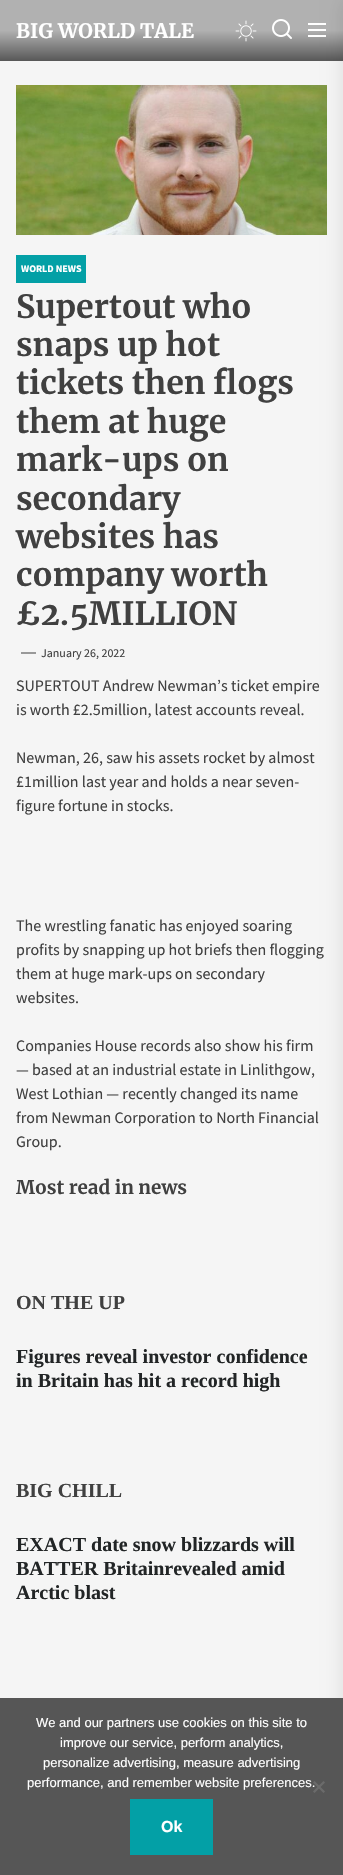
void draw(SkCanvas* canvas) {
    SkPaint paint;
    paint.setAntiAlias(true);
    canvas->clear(0xFFF5F5F5);
    {
        const SkColor colors[] = {0xFFB1B1B1, 0xFF585858};
        const float stops[] = {0.5f, 1};
        const SkPoint ends[] = {{172, 0}, {172, 61}};
        paint.setShader(SkGradientShader::MakeLinear(ends, colors, stops, 2, SkTileMode::kClamp));
        paint.setAlpha(255);
    }
    canvas->drawRect(SkRect::MakeXYWH(0, 0, 343, 61), paint);
    SkFont font1(fontMgr->matchFamilyStyle("Merriweather", SkFontStyle::Bold()), 20);
    font1.setSubpixel(true);
    paint.setShader(nullptr);
    paint.setColor(0xFFFFFFFF);
    canvas->drawString("BIG WORLD TALE", 16, 38, font1, paint);
    canvas->drawImageRect(SkImages::DeferredFromEncodedData(SkData::MakeFromFileName("img1.png")), SkRect::MakeXYWH(235, 20, 22, 22), SkSamplingOptions());
    canvas->drawImageRect(SkImages::DeferredFromEncodedData(SkData::MakeFromFileName("img2.png")), SkRect::MakeXYWH(272, 19, 20, 20), SkSamplingOptions());
    canvas->drawImageRect(SkImages::DeferredFromEncodedData(SkData::MakeFromFileName("img3.png")), SkRect::MakeXYWH(308, 23, 18, 14), SkSamplingOptions());
    canvas->drawImageRect(SkImages::DeferredFromEncodedData(SkData::MakeFromFileName("img4.png")), SkRect::MakeXYWH(16, 85, 311, 150), SkSamplingOptions());
    paint.setColor(0x1A000000);
    paint.setMaskFilter(SkMaskFilter::MakeBlur(kNormal_SkBlurStyle, 10));
    canvas->drawRect(SkRect::MakeXYWH(343, 0, 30, 1875), paint);
    paint.setMaskFilter(nullptr);
    paint.setColor(0xFF03A0A6);
    canvas->drawRect(SkRect::MakeXYWH(16, 255, 70, 28), paint);
    SkFont font2(fontMgr->matchFamilyStyle("Source Sans Pro", SkFontStyle::Bold()), 10);
    font2.setSubpixel(true);
    paint.setColor(0xFFFFFFFF);
    canvas->drawString("WORLD NEWS", 21, 272, font2, paint);
    SkFont font3(fontMgr->matchFamilyStyle("Merriweather", SkFontStyle::Bold()), 32);
    font3.setSubpixel(true);
    paint.setColor(0xFF404040);
    canvas->drawString("Supertout who", 16, 318, font3, paint);
    canvas->drawString("snaps up hot", 16, 356, font3, paint);
    canvas->drawString("tickets then flogs", 16, 394, font3, paint);
    canvas->drawString("them at huge", 16, 433, font3, paint);
    canvas->drawString("mark-ups on", 16, 471, font3, paint);
    canvas->drawString("secondary", 16, 510, font3, paint);
    canvas->drawString("websites has", 16, 548, font3, paint);
    canvas->drawString("company worth", 16, 586, font3, paint);
    canvas->drawString("£2.5MILLION", 16, 625, font3, paint);
    paint.setColor(0xFF999999);
    canvas->drawRect(SkRect::MakeXYWH(21, 652, 15, 2), paint);
    SkFont font4(fontMgr->matchFamilyStyle("Source Sans Pro", SkFontStyle::Normal()), 12);
    font4.setSubpixel(true);
    paint.setColor(0xFF404040);
    canvas->drawString("January 26, 2022", 41, 657, font4, paint);
    SkFont font5(fontMgr->matchFamilyStyle("Source Sans Pro", SkFontStyle::Normal()), 16);
    font5.setSubpixel(true);
    canvas->drawString("SUPERTOUT Andrew Newman’s ticket empire", 16, 691, font5, paint);
    canvas->drawString("is worth £2.5million, latest accounts reveal.", 16, 715, font5, paint);
    canvas->drawString("Newman, 26, saw his assets rocket by almost", 16, 763, font5, paint);
    canvas->drawString("£1million last year and holds a near seven-", 16, 787, font5, paint);
    canvas->drawString("figure fortune in stocks.", 16, 811, font5, paint);
    canvas->drawString("The wrestling fanatic has enjoyed soaring", 16, 931, font5, paint);
    canvas->drawString("profits by snapping up hot briefs then flogging", 16, 955, font5, paint);
    canvas->drawString("them at huge mark-ups on secondary", 16, 979, font5, paint);
    canvas->drawString("websites.", 16, 1003, font5, paint);
    canvas->drawString("Companies House records also show his firm", 16, 1051, font5, paint);
    canvas->drawString("— based at an industrial estate in Linlithgow,", 16, 1075, font5, paint);
    canvas->drawString("West Lothian — recently changed its name", 16, 1099, font5, paint);
    canvas->drawString("from Newman Corporation to North Financial", 16, 1123, font5, paint);
    canvas->drawString("Group.", 16, 1147, font5, paint);
    SkFont font6(fontMgr->matchFamilyStyle("Merriweather", SkFontStyle::Bold()), 18.75f);
    font6.setSubpixel(true);
    canvas->drawString("Most read in news", 16, 1194, font6, paint);
    SkFont font7(fontMgr->matchFamilyStyle("Liberation Serif", SkFontStyle::Bold()), 20);
    font7.setSubpixel(true);
    canvas->drawString("ON THE UP", 16, 1309, font7, paint);
    paint.setColor(0xFF222526);
    canvas->drawString("Figures reveal investor confidence", 16, 1363, font7, paint);
    canvas->drawString("in Britain has hit a record high", 16, 1387, font7, paint);
    paint.setColor(0xFF404040);
    canvas->drawString("BIG CHILL", 16, 1497, font7, paint);
    paint.setColor(0xFF222526);
    canvas->drawString("EXACT date snow blizzards will", 16, 1551, font7, paint);
    canvas->drawString("BATTER Britainrevealed amid", 16, 1575, font7, paint);
    canvas->drawString("Arctic blast", 16, 1599, font7, paint);
    paint.setColor(0xFF565656);
    canvas->drawRect(SkRect::MakeXYWH(0, 1698, 343, 177), paint);
    SkFont font8(fontMgr->matchFamilyStyle("Liberation Sans", SkFontStyle::Normal()), 13);
    font8.setSubpixel(true);
    paint.setColor(0xFFFFFFFF);
    canvas->drawString("We and our partners use cookies on this site to", 36, 1727, font8, paint);
    canvas->drawString("improve our service, perform analytics,", 60, 1747, font8, paint);
    canvas->drawString("personalize advertising, measure advertising", 43, 1767, font8, paint);
    canvas->drawString("performance, and remember website preferences.", 27, 1787, font8, paint);
    paint.setColor(0xFF6B6B6B);
    canvas->drawPath(SkPathBuilder().moveTo(323.5f, 1781).lineTo(325, 1782.5f).lineTo(314.5f, 1793).lineTo(313, 1791.5f).close().detach(), paint);
    canvas->drawPath(SkPathBuilder().moveTo(313, 1782.5f).lineTo(314.5f, 1781).lineTo(325, 1791.5f).lineTo(323.5f, 1793).close().detach(), paint);
    paint.setColor(0xFF03A0A6);
    canvas->drawRect(SkRect::MakeXYWH(130, 1799, 83, 56), paint);
    SkFont font9(fontMgr->matchFamilyStyle("Liberation Sans", SkFontStyle::Bold()), 16);
    font9.setSubpixel(true);
    paint.setColor(0xFFFFFFFF);
    canvas->drawString("Ok", 161, 1832, font9, paint);
}
